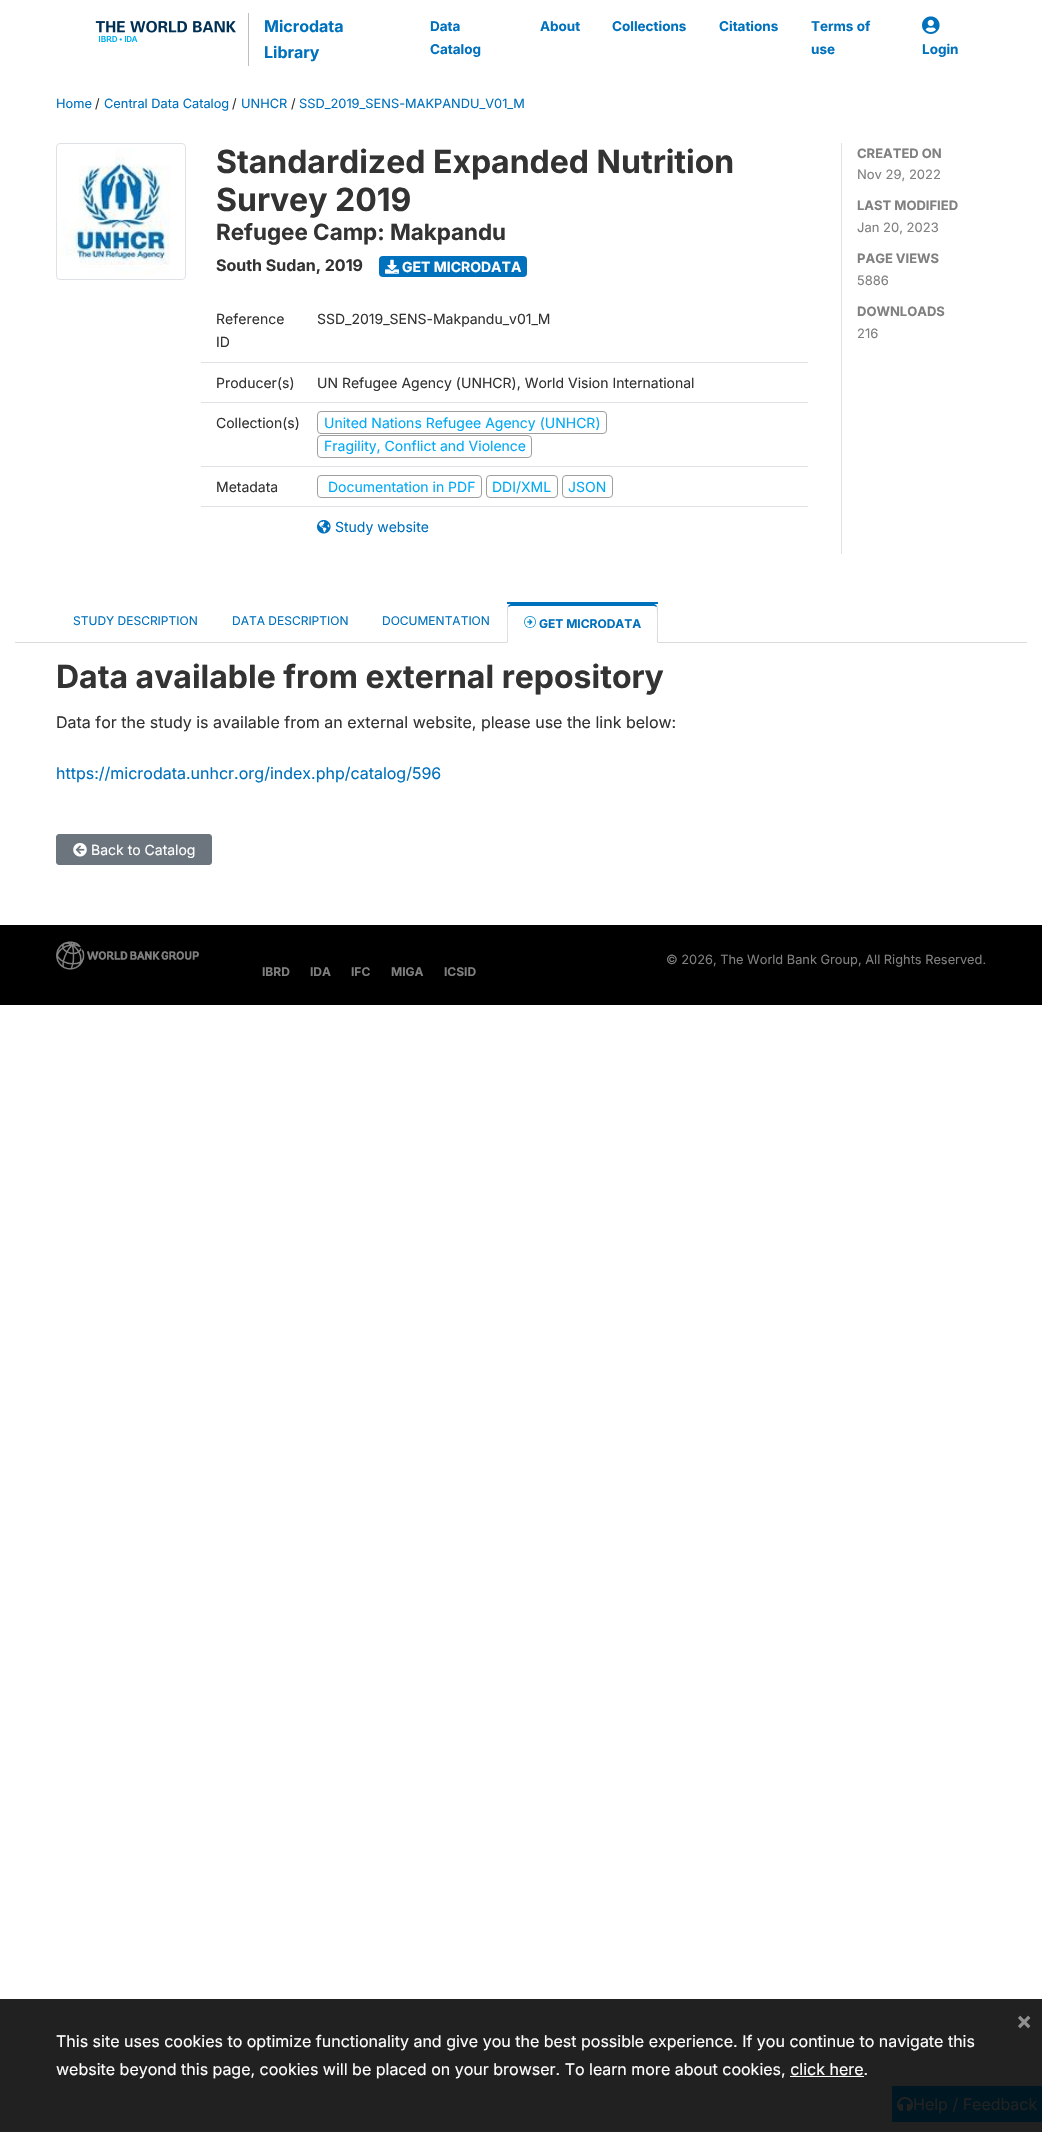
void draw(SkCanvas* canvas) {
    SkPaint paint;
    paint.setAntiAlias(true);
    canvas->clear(0xFFFFFFFF);
    paint.setColor(0xFF212121);
    canvas->drawRect(SkRect::MakeXYWH(0, 1999, 1042, 133), paint);
    canvas->drawImageRect(SkImages::DeferredFromEncodedData(SkData::MakeFromFileName("img1.png")), SkRect::MakeXYWH(95, 20, 141, 22), SkSamplingOptions());
    paint.setColor(0xFFBFBFBF);
    canvas->drawRect(SkRect::MakeXYWH(248, 13, 1, 53), paint);
    SkFont font1(fontMgr->matchFamilyStyle("Inter", SkFontStyle::Bold()), 16);
    font1.setSubpixel(true);
    paint.setColor(0xFF0071BD);
    canvas->drawString("Microdata", 264, 32, font1, paint);
    canvas->drawString("Library", 264, 58, font1, paint);
    SkFont font2(fontMgr->matchFamilyStyle("Inter", SkFontStyle::Bold()), 13.5f);
    font2.setSubpixel(true);
    canvas->drawString("Data", 430, 31, font2, paint);
    canvas->drawString("Catalog", 430, 54, font2, paint);
    canvas->drawString("About", 540, 31, font2, paint);
    canvas->drawString("Collections", 612, 31, font2, paint);
    canvas->drawString("Citations", 719, 31, font2, paint);
    canvas->drawString("Terms of", 811, 31, font2, paint);
    canvas->drawString("use", 811, 54, font2, paint);
    canvas->drawImageRect(SkImages::DeferredFromEncodedData(SkData::MakeFromFileName("img2.png")), SkRect::MakeXYWH(922, 16, 18, 18), SkSamplingOptions());
    canvas->drawString("Login", 922, 54, font2, paint);
    SkFont font3(fontMgr->matchFamilyStyle("Inter", SkFontStyle::Normal()), 12.8f);
    font3.setSubpixel(true);
    canvas->drawString("Home", 56, 108, font3, paint);
    paint.setColor(0xFF333333);
    canvas->drawString("/", 95, 108, font3, paint);
    paint.setColor(0xFF0071BD);
    canvas->drawString("Central Data Catalog", 104, 108, font3, paint);
    paint.setColor(0xFF333333);
    canvas->drawString("/", 232, 108, font3, paint);
    paint.setColor(0xFF0071BD);
    canvas->drawString("UNHCR", 241, 108, font3, paint);
    paint.setColor(0xFF333333);
    canvas->drawString("/", 291, 108, font3, paint);
    paint.setColor(0xFF0071BD);
    canvas->drawString("SSD_2019_SENS-MAKPANDU_V01_M", 299, 108, font3, paint);
    paint.setColor(0xFFDCDCDC);
    canvas->drawRect(SkRect::MakeXYWH(15, 642, 1012, 1), paint);
    paint.setStyle(SkPaint::kStroke_Style);
    paint.setStrokeWidth(1);
    paint.setColor(0xFFDEE2E6);
    canvas->drawRoundRect(SkRect::MakeXYWH(56.5f, 143.5f, 129, 136), 3.5f, 3.5f, paint);
    canvas->drawImageRect(SkImages::DeferredFromEncodedData(SkData::MakeFromFileName("img3.png")), SkRect::MakeXYWH(61, 148, 109, 127), SkSamplingOptions());
    SkFont font4(fontMgr->matchFamilyStyle("Inter", SkFontStyle::Bold()), 32);
    font4.setSubpixel(true);
    paint.setStyle(SkPaint::kFill_Style);
    paint.setColor(0xFF333333);
    canvas->drawString("Standardized Expanded Nutrition", 216, 173, font4, paint);
    canvas->drawString("Survey 2019", 216, 211, font4, paint);
    SkFont font5(fontMgr->matchFamilyStyle("Inter", SkFontStyle::Bold()), 22.4f);
    font5.setSubpixel(true);
    canvas->drawString("Refugee Camp: Makpandu", 216, 240, font5, paint);
    canvas->drawString("South Sudan, 2019", 216, 271, font1, paint);
    paint.setColor(0xFF0071BD);
    canvas->drawRoundRect(SkRect::MakeXYWH(379, 256, 148, 21), 4, 4, paint);
    canvas->drawImageRect(SkImages::DeferredFromEncodedData(SkData::MakeFromFileName("img4.png")), SkRect::MakeXYWH(385, 259, 14, 15), SkSamplingOptions());
    SkFont font6(fontMgr->matchFamilyStyle("Inter", SkFontStyle::Bold()), 14);
    font6.setSubpixel(true);
    paint.setColor(0xFFFFFFFF);
    canvas->drawString("GET MICRODATA", 402, 272, font6, paint);
    paint.setColor(0xFFDEE2E6);
    canvas->drawRect(SkRect::MakeXYWH(201, 362, 607, 1), paint);
    SkFont font7(fontMgr->matchFamilyStyle("Inter", SkFontStyle::Normal()), 14);
    font7.setSubpixel(true);
    paint.setColor(0xFF333333);
    canvas->drawString("Reference", 216, 324, font7, paint);
    canvas->drawString("ID", 216, 347, font7, paint);
    canvas->drawString("SSD_2019_SENS-Makpandu_v01_M", 317, 324, font7, paint);
    paint.setColor(0xFFDEE2E6);
    canvas->drawRect(SkRect::MakeXYWH(201, 402, 607, 1), paint);
    paint.setColor(0xFF333333);
    canvas->drawString("Producer(s)", 216, 388, font7, paint);
    canvas->drawString("UN Refugee Agency (UNHCR), World Vision International", 317, 388, font7, paint);
    paint.setColor(0xFFDEE2E6);
    canvas->drawRect(SkRect::MakeXYWH(201, 466, 607, 1), paint);
    paint.setColor(0xFF333333);
    canvas->drawString("Collection(s)", 216, 428, font7, paint);
    paint.setStyle(SkPaint::kStroke_Style);
    paint.setColor(0xFF9E9E9E);
    canvas->drawRoundRect(SkRect::MakeXYWH(317.5f, 411.5f, 289, 22), 3.5f, 3.5f, paint);
    paint.setStyle(SkPaint::kFill_Style);
    paint.setColor(0xFF03A9F4);
    canvas->drawString("United Nations Refugee Agency (UNHCR)", 324, 428, font7, paint);
    paint.setStyle(SkPaint::kStroke_Style);
    paint.setColor(0xFF9E9E9E);
    canvas->drawRoundRect(SkRect::MakeXYWH(317.5f, 435.5f, 214, 22), 3.5f, 3.5f, paint);
    paint.setStyle(SkPaint::kFill_Style);
    paint.setColor(0xFF03A9F4);
    canvas->drawString("Fragility, Conflict and Violence", 324, 451, font7, paint);
    paint.setColor(0xFFDEE2E6);
    canvas->drawRect(SkRect::MakeXYWH(201, 506, 607, 1), paint);
    paint.setColor(0xFF333333);
    canvas->drawString("Metadata", 216, 492, font7, paint);
    paint.setStyle(SkPaint::kStroke_Style);
    paint.setColor(0xFF9E9E9E);
    canvas->drawRoundRect(SkRect::MakeXYWH(317.5f, 475.5f, 164, 22), 3.5f, 3.5f, paint);
    paint.setStyle(SkPaint::kFill_Style);
    paint.setColor(0xFF03A9F4);
    canvas->drawString("Documentation in PDF", 328, 492, font7, paint);
    paint.setStyle(SkPaint::kStroke_Style);
    paint.setColor(0xFF9E9E9E);
    canvas->drawRoundRect(SkRect::MakeXYWH(486.5f, 475.5f, 71, 22), 3.5f, 3.5f, paint);
    paint.setStyle(SkPaint::kFill_Style);
    paint.setColor(0xFF03A9F4);
    canvas->drawString("DDI/XML", 492, 492, font7, paint);
    paint.setStyle(SkPaint::kStroke_Style);
    paint.setColor(0xFF9E9E9E);
    canvas->drawRoundRect(SkRect::MakeXYWH(562.5f, 475.5f, 50, 22), 3.5f, 3.5f, paint);
    paint.setStyle(SkPaint::kFill_Style);
    paint.setColor(0xFF03A9F4);
    canvas->drawString("JSON", 568, 492, font7, paint);
    canvas->drawImageRect(SkImages::DeferredFromEncodedData(SkData::MakeFromFileName("img5.png")), SkRect::MakeXYWH(317, 520, 14, 14), SkSamplingOptions());
    paint.setColor(0xFF0071BD);
    canvas->drawString("Study website", 335, 532, font7, paint);
    paint.setColor(0xFFDEE2E6);
    canvas->drawRect(SkRect::MakeXYWH(841, 143, 1, 411), paint);
    SkFont font8(fontMgr->matchFamilyStyle("Inter", SkFontStyle::Bold()), 13);
    font8.setSubpixel(true);
    paint.setColor(0xFF808080);
    canvas->drawString("CREATED ON", 857, 158, font8, paint);
    SkFont font9(fontMgr->matchFamilyStyle("Inter", SkFontStyle::Normal()), 13);
    font9.setSubpixel(true);
    canvas->drawString("Nov 29, 2022", 857, 179, font9, paint);
    canvas->drawString("LAST MODIFIED", 857, 210, font8, paint);
    canvas->drawString("Jan 20, 2023", 857, 232, font9, paint);
    canvas->drawString("PAGE VIEWS", 857, 263, font8, paint);
    canvas->drawString("5886", 857, 285, font9, paint);
    canvas->drawString("DOWNLOADS", 857, 316, font8, paint);
    canvas->drawString("216", 857, 338, font9, paint);
    SkFont font10(fontMgr->matchFamilyStyle("Inter", SkFontStyle::Normal()), 12);
    font10.setSubpixel(true);
    paint.setColor(0xFF0071BD);
    canvas->drawString("STUDY DESCRIPTION", 73, 625, font10, paint);
    canvas->drawString("DATA DESCRIPTION", 232, 625, font10, paint);
    canvas->drawString("DOCUMENTATION", 382, 625, font10, paint);
    paint.setColor(0xFFFFFFFF);
    canvas->drawRect(SkRect::MakeXYWH(507, 642, 151, 1), paint);
    paint.setColor(0xFF0071BC);
    canvas->drawRect(SkRect::MakeXYWH(507, 602, 151, 2), paint);
    canvas->drawPath(SkPathBuilder().moveTo(511, 604).cubicTo(510, 604, 509, 605, 508, 606).lineTo(508, 607).lineTo(511, 606).lineTo(654, 606).lineTo(657, 607).lineTo(657, 606).cubicTo(656, 605, 655, 604, 654, 604).close().detach(), paint);
    paint.setColor(0xFFDCDCDC);
    canvas->drawPath(SkPathBuilder().moveTo(658, 643).lineTo(658, 608).cubicTo(658, 607, 657.5f, 606.5f, 657, 605.5f).lineTo(656.5f, 607).cubicTo(657.5f, 608, 657, 638, 657, 642).close().detach(), paint);
    canvas->drawPath(SkPathBuilder().moveTo(507, 643).lineTo(508, 642).cubicTo(508, 638, 507.5f, 608, 508.5f, 607).lineTo(508, 605.5f).cubicTo(507.5f, 606.5f, 507, 607, 507, 608).close().detach(), paint);
    canvas->drawImageRect(SkImages::DeferredFromEncodedData(SkData::MakeFromFileName("img6.png")), SkRect::MakeXYWH(524, 616, 12, 12), SkSamplingOptions());
    SkFont font11(fontMgr->matchFamilyStyle("Inter", SkFontStyle::Bold()), 12);
    font11.setSubpixel(true);
    paint.setColor(0xFF0071BD);
    canvas->drawString("GET MICRODATA", 539, 628, font11, paint);
    paint.setColor(0xFF333333);
    canvas->drawString("Data available from external repository", 56, 688, font4, paint);
    SkFont font12(fontMgr->matchFamilyStyle("Inter", SkFontStyle::Normal()), 16);
    font12.setSubpixel(true);
    canvas->drawString("Data for the study is available from an external website, please use the link below:", 56, 728, font12, paint);
    paint.setColor(0xFF0071BD);
    canvas->drawString("https://microdata.unhcr.org/index.php/catalog/596", 56, 779, font12, paint);
    paint.setColor(0xFF6C757D);
    canvas->drawRoundRect(SkRect::MakeXYWH(56.5f, 834.5f, 155, 30), 2.5f, 2.5f, paint);
    paint.setStyle(SkPaint::kStroke_Style);
    canvas->drawRoundRect(SkRect::MakeXYWH(56.5f, 834.5f, 155, 30), 2.5f, 2.5f, paint);
    canvas->drawImageRect(SkImages::DeferredFromEncodedData(SkData::MakeFromFileName("img7.png")), SkRect::MakeXYWH(73, 843, 14, 14), SkSamplingOptions());
    paint.setStyle(SkPaint::kFill_Style);
    paint.setColor(0xFFFFFFFF);
    canvas->drawString("Back to Catalog", 91, 855, font7, paint);
    paint.setColor(0xFF000000);
    canvas->drawRect(SkRect::MakeXYWH(0, 925, 1042, 80), paint);
    canvas->drawImageRect(SkImages::DeferredFromEncodedData(SkData::MakeFromFileName("img8.png")), SkRect::MakeXYWH(56, 941, 143, 29), SkSamplingOptions());
    paint.setColor(0xFF808080);
    canvas->drawString("© 2026, The World Bank Group, All Rights Reserved.", 666, 964, font3, paint);
    canvas->drawString("IBRD", 262, 976, font11, paint);
    canvas->drawString("IDA", 310, 976, font11, paint);
    canvas->drawString("IFC", 351, 976, font11, paint);
    canvas->drawString("MIGA", 391, 976, font11, paint);
    canvas->drawString("ICSID", 444, 976, font11, paint);
    paint.setColor(0xFF001620);
    canvas->drawRect(SkRect::MakeXYWH(892, 2086, 150, 36), paint);
    canvas->drawImageRect(SkImages::DeferredFromEncodedData(SkData::MakeFromFileName("img9.png")), SkRect::MakeXYWH(897, 2097, 16, 14), SkSamplingOptions());
    paint.setColor(0xFF212121);
    canvas->drawString("Help / Feedback", 913, 2110, font12, paint);
    SkFont font13(fontMgr->matchFamilyStyle("Inter", SkFontStyle::Bold()), 24);
    font13.setSubpixel(true);
    paint.setColor(0xFF909090);
    canvas->drawString("×", 1016, 2029, font13, paint);
    paint.setColor(0xFFFFFFFF);
    canvas->drawString("This site uses cookies to optimize functionality and give you the best possible experience. If you continue to navigate this", 56, 2047, font12, paint);
    canvas->drawString("website beyond this page, cookies will be placed on your browser. To learn more about cookies, click here.", 56, 2075, font12, paint);
    canvas->drawRect(SkRect::MakeXYWH(790, 2076, 74, 1), paint);
}
